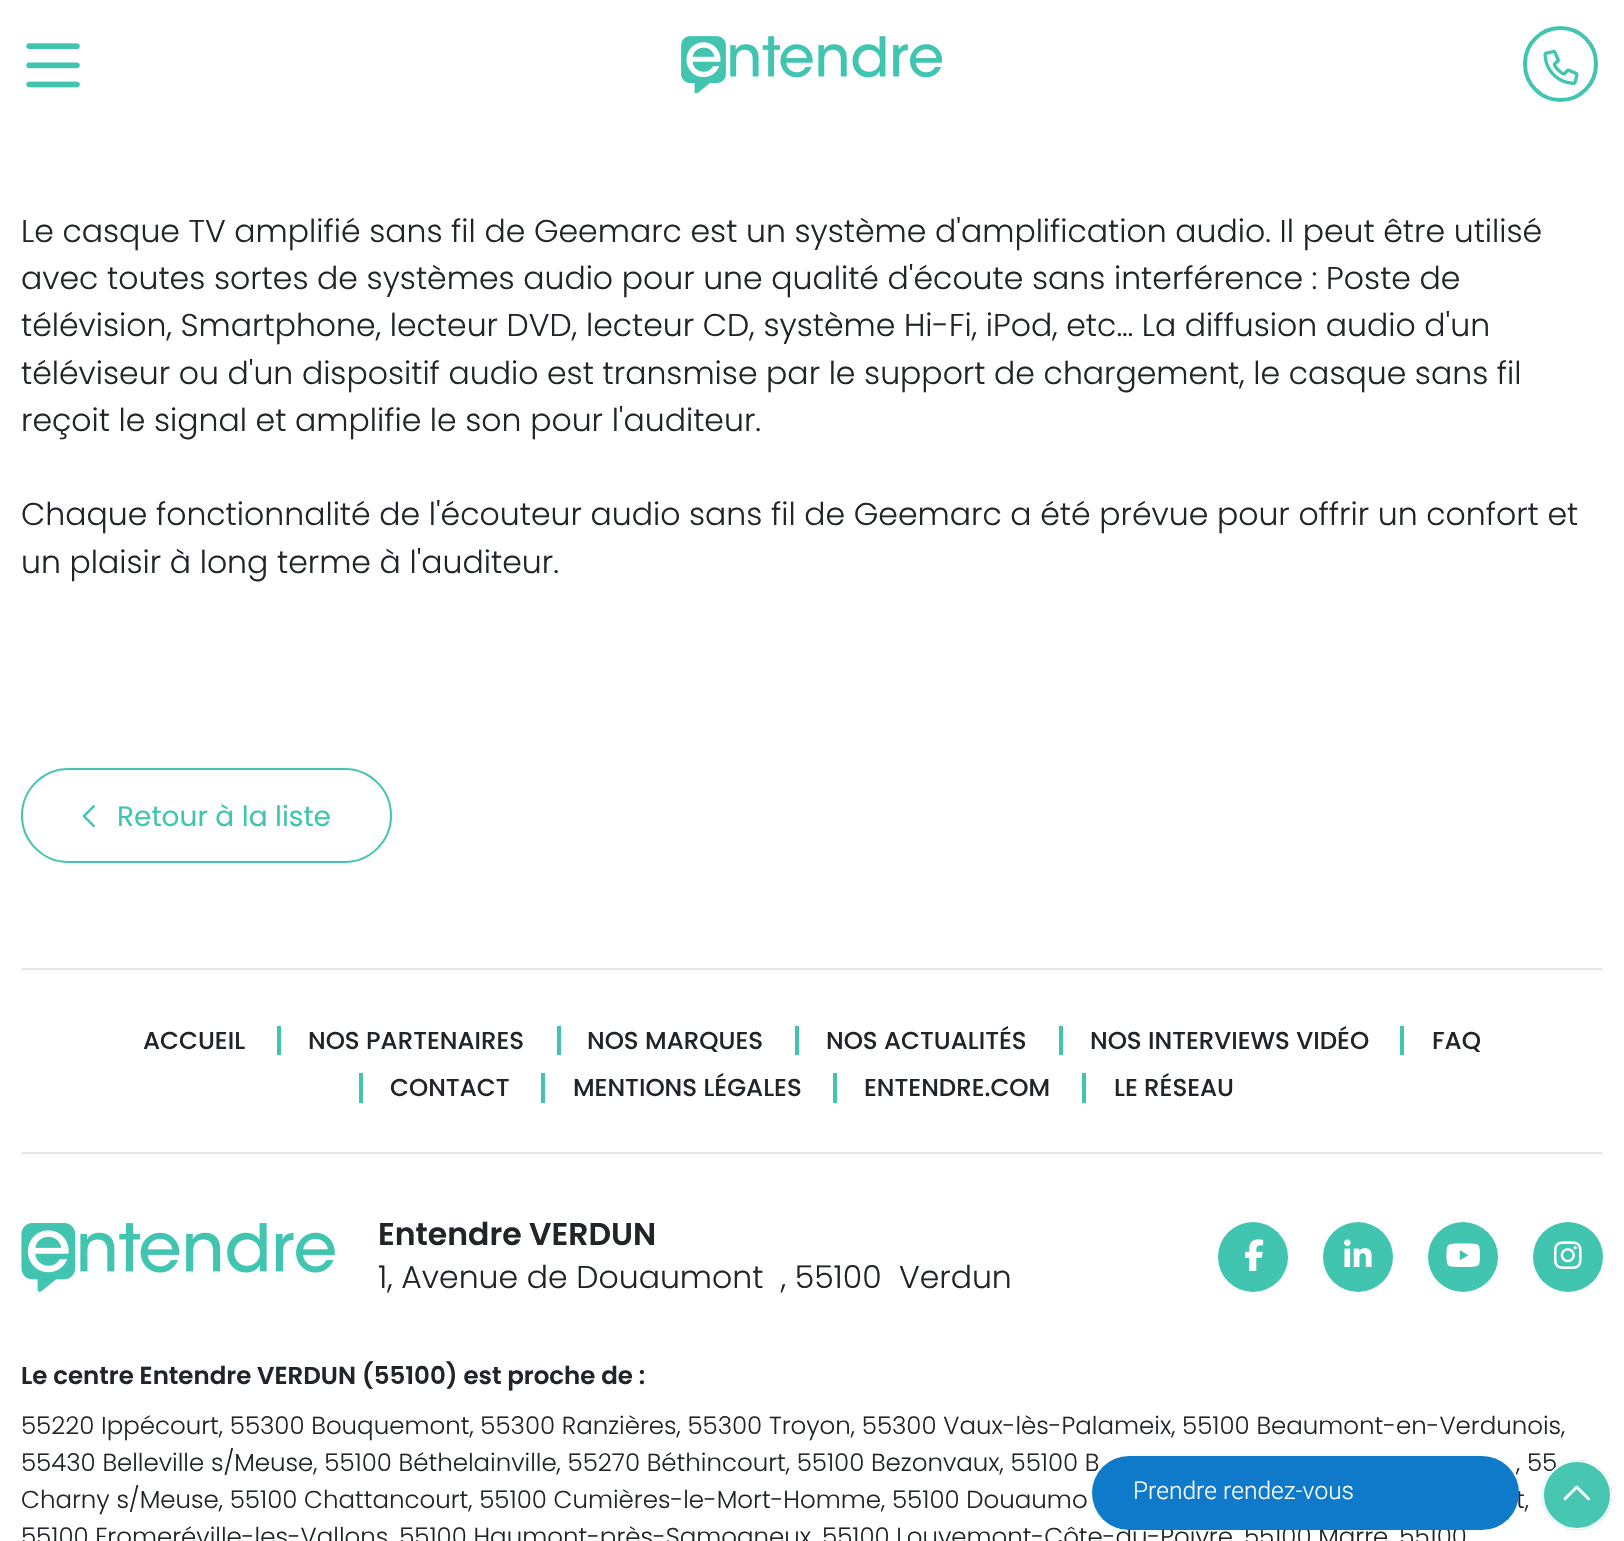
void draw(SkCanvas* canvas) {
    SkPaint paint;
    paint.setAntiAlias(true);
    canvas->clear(0xFFFFFFFF);
    SkFont font1(fontMgr->matchFamilyStyle("Poppins", SkFontStyle(300, SkFontStyle::kNormal_Width, SkFontStyle::kUpright_Slant)), 31.5f);
    font1.setSubpixel(true);
    paint.setColor(0xFF212529);
    canvas->drawString("Le casque TV amplifié sans fil de Geemarc est un système d'amplification audio. Il peut être utilisé", 21, 242, font1, paint);
    canvas->drawString("avec toutes sortes de systèmes audio pour une qualité d'écoute sans interférence : Poste de", 21, 289, font1, paint);
    canvas->drawString("télévision, Smartphone, lecteur DVD, lecteur CD, système Hi-Fi, iPod, etc… La diffusion audio d'un", 21, 336, font1, paint);
    canvas->drawString("téléviseur ou d'un dispositif audio est transmise par le support de chargement, le casque sans fil", 21, 384, font1, paint);
    canvas->drawString("reçoit le signal et amplifie le son pour l'auditeur.", 21, 431, font1, paint);
    canvas->drawString("Chaque fonctionnalité de l'écouteur audio sans fil de Geemarc a été prévue pour offrir un confort et", 21, 525, font1, paint);
    canvas->drawString("un plaisir à long terme à l'auditeur.", 21, 573, font1, paint);
    paint.setStyle(SkPaint::kStroke_Style);
    paint.setStrokeWidth(2);
    paint.setColor(0xFF41C4B0);
    canvas->drawRoundRect(SkRect::MakeXYWH(22, 769, 369, 93), 46.5f, 46.5f, paint);
    canvas->drawImageRect(SkImages::DeferredFromEncodedData(SkData::MakeFromFileName("img1.png")), SkRect::MakeXYWH(82, 805, 13, 23), SkSamplingOptions());
    SkFont font2(fontMgr->matchFamilyStyle("Poppins", SkFontStyle::Normal()), 28);
    font2.setSubpixel(true);
    paint.setStyle(SkPaint::kFill_Style);
    canvas->drawString("Retour à la liste", 117, 826, font2, paint);
    paint.setColor(0xFFE6E6E6);
    canvas->drawRect(SkRect::MakeXYWH(21, 968, 1582, 2), paint);
    canvas->drawRect(SkRect::MakeXYWH(21, 1152, 1582, 2), paint);
    SkFont font3(fontMgr->matchFamilyStyle("Poppins", SkFontStyle(500, SkFontStyle::kNormal_Width, SkFontStyle::kUpright_Slant)), 24.5f);
    font3.setSubpixel(true);
    paint.setColor(0xFF212529);
    canvas->drawString("ACCUEIL", 143, 1049, font3, paint);
    paint.setColor(0xFF41C4B0);
    canvas->drawRect(SkRect::MakeXYWH(277, 1026, 4, 29), paint);
    paint.setColor(0xFF212529);
    canvas->drawString("NOS PARTENAIRES", 308, 1049, font3, paint);
    paint.setColor(0xFF41C4B0);
    canvas->drawRect(SkRect::MakeXYWH(557, 1026, 4, 29), paint);
    paint.setColor(0xFF212529);
    canvas->drawString("NOS MARQUES", 587, 1049, font3, paint);
    paint.setColor(0xFF41C4B0);
    canvas->drawRect(SkRect::MakeXYWH(795, 1026, 4, 29), paint);
    paint.setColor(0xFF212529);
    canvas->drawString("NOS ACTUALITÉS", 826, 1049, font3, paint);
    paint.setColor(0xFF41C4B0);
    canvas->drawRect(SkRect::MakeXYWH(1059, 1026, 4, 29), paint);
    paint.setColor(0xFF212529);
    canvas->drawString("NOS INTERVIEWS VIDÉO", 1090, 1049, font3, paint);
    paint.setColor(0xFF41C4B0);
    canvas->drawRect(SkRect::MakeXYWH(1400, 1026, 4, 29), paint);
    paint.setColor(0xFF212529);
    canvas->drawString("FAQ", 1432, 1049, font3, paint);
    paint.setColor(0xFF41C4B0);
    canvas->drawRect(SkRect::MakeXYWH(359, 1073, 4, 30), paint);
    paint.setColor(0xFF212529);
    canvas->drawString("CONTACT", 390, 1096, font3, paint);
    paint.setColor(0xFF41C4B0);
    canvas->drawRect(SkRect::MakeXYWH(541, 1073, 4, 30), paint);
    paint.setColor(0xFF212529);
    canvas->drawString("MENTIONS LÉGALES", 573, 1096, font3, paint);
    paint.setColor(0xFF41C4B0);
    canvas->drawRect(SkRect::MakeXYWH(833, 1073, 4, 30), paint);
    paint.setColor(0xFF212529);
    canvas->drawString("ENTENDRE.COM", 864, 1096, font3, paint);
    paint.setColor(0xFF41C4B0);
    canvas->drawRect(SkRect::MakeXYWH(1082, 1073, 4, 30), paint);
    paint.setColor(0xFF212529);
    canvas->drawString("LE RÉSEAU", 1114, 1096, font3, paint);
    canvas->drawImageRect(SkImages::DeferredFromEncodedData(SkData::MakeFromFileName("img2.png")), SkRect::MakeXYWH(21, 1223, 314, 69), SkSamplingOptions());
    SkFont font4(fontMgr->matchFamilyStyle("Poppins", SkFontStyle(600, SkFontStyle::kNormal_Width, SkFontStyle::kUpright_Slant)), 31.5f);
    font4.setSubpixel(true);
    canvas->drawString("Entendre VERDUN", 378, 1245, font4, paint);
    canvas->drawString("1, Avenue de Douaumont  , 55100  Verdun", 378, 1288, font1, paint);
    paint.setColor(0xFF41C4B0);
    canvas->drawCircle(1253, 1257, 35, paint);
    canvas->drawImageRect(SkImages::DeferredFromEncodedData(SkData::MakeFromFileName("img3.png")), SkRect::MakeXYWH(1245, 1239, 19, 32), SkSamplingOptions());
    canvas->drawCircle(1358, 1257, 35, paint);
    canvas->drawImageRect(SkImages::DeferredFromEncodedData(SkData::MakeFromFileName("img4.png")), SkRect::MakeXYWH(1344, 1239, 28, 28), SkSamplingOptions());
    canvas->drawCircle(1463, 1257, 35, paint);
    canvas->drawImageRect(SkImages::DeferredFromEncodedData(SkData::MakeFromFileName("img5.png")), SkRect::MakeXYWH(1446, 1243, 34, 24), SkSamplingOptions());
    canvas->drawCircle(1568, 1257, 35, paint);
    canvas->drawImageRect(SkImages::DeferredFromEncodedData(SkData::MakeFromFileName("img6.png")), SkRect::MakeXYWH(1554, 1241, 28, 28), SkSamplingOptions());
    SkFont font5(fontMgr->matchFamilyStyle("Poppins", SkFontStyle(600, SkFontStyle::kNormal_Width, SkFontStyle::kUpright_Slant)), 24.5f);
    font5.setSubpixel(true);
    paint.setColor(0xFF212529);
    canvas->drawString("Le centre Entendre VERDUN (55100) est proche de :", 21, 1384, font5, paint);
    SkFont font6(fontMgr->matchFamilyStyle("Poppins", SkFontStyle(300, SkFontStyle::kNormal_Width, SkFontStyle::kUpright_Slant)), 24.5f);
    font6.setSubpixel(true);
    canvas->drawString("55220 Ippécourt, 55300 Bouquemont, 55300 Ranzières, 55300 Troyon, 55300 Vaux-lès-Palameix, 55100 Beaumont-en-Verdunois,", 21, 1434, font6, paint);
    canvas->drawString("55430 Belleville s/Meuse, 55100 Béthelainville, 55270 Béthincourt, 55100 Bezonvaux, 55100 B", 21, 1471, font6, paint);
    canvas->drawString(", 55", 1516, 1471, font6, paint);
    canvas->drawString("Charny s/Meuse, 55100 Chattancourt, 55100 Cumières-le-Mort-Homme, 55100 Douaumo", 21, 1508, font6, paint);
    canvas->drawString("t,", 1516, 1508, font6, paint);
    canvas->drawString("55100 Fromeréville-les-Vallons, 55100 Haumont-près-Samogneux, 55100 Louvemont-Côte-du-Poivre, 55100 Marre, 55100", 21, 1545, font6, paint);
    canvas->drawImageRect(SkImages::DeferredFromEncodedData(SkData::MakeFromFileName("img7.png")), SkRect::MakeXYWH(26, 43, 54, 45), SkSamplingOptions());
    canvas->drawImageRect(SkImages::DeferredFromEncodedData(SkData::MakeFromFileName("img8.png")), SkRect::MakeXYWH(681, 36, 261, 58), SkSamplingOptions());
    paint.setStyle(SkPaint::kStroke_Style);
    paint.setStrokeWidth(4);
    paint.setColor(0xFF41C4B0);
    canvas->drawRoundRect(SkRect::MakeXYWH(1525, 28, 71, 72), 35.5f, 35.5f, paint);
    canvas->drawImageRect(SkImages::DeferredFromEncodedData(SkData::MakeFromFileName("img9.png")), SkRect::MakeXYWH(1543, 49, 36, 36), SkSamplingOptions());
    paint.setStyle(SkPaint::kFill_Style);
    paint.setColor(0xFF107ACA);
    canvas->drawRoundRect(SkRect::MakeXYWH(1092, 1456, 427, 74), 37, 37, paint);
    SkFont font7(fontMgr->matchFamilyStyle("Roboto", SkFontStyle(300, SkFontStyle::kNormal_Width, SkFontStyle::kUpright_Slant)), 24.5f);
    font7.setSubpixel(true);
    paint.setColor(0xFFFFFFFF);
    canvas->drawString("Prendre rendez-vous", 1133, 1499, font7, paint);
    paint.setColor(0xF741C4B0);
    canvas->drawCircle(1577, 1495, 35, paint);
    paint.setStyle(SkPaint::kStroke_Style);
    paint.setStrokeWidth(2);
    paint.setColor(0xF7FFFFFF);
    canvas->drawCircle(1577, 1495, 34, paint);
    canvas->drawImageRect(SkImages::DeferredFromEncodedData(SkData::MakeFromFileName("img10.png")), SkRect::MakeXYWH(1563, 1485, 27, 16), SkSamplingOptions());
}
